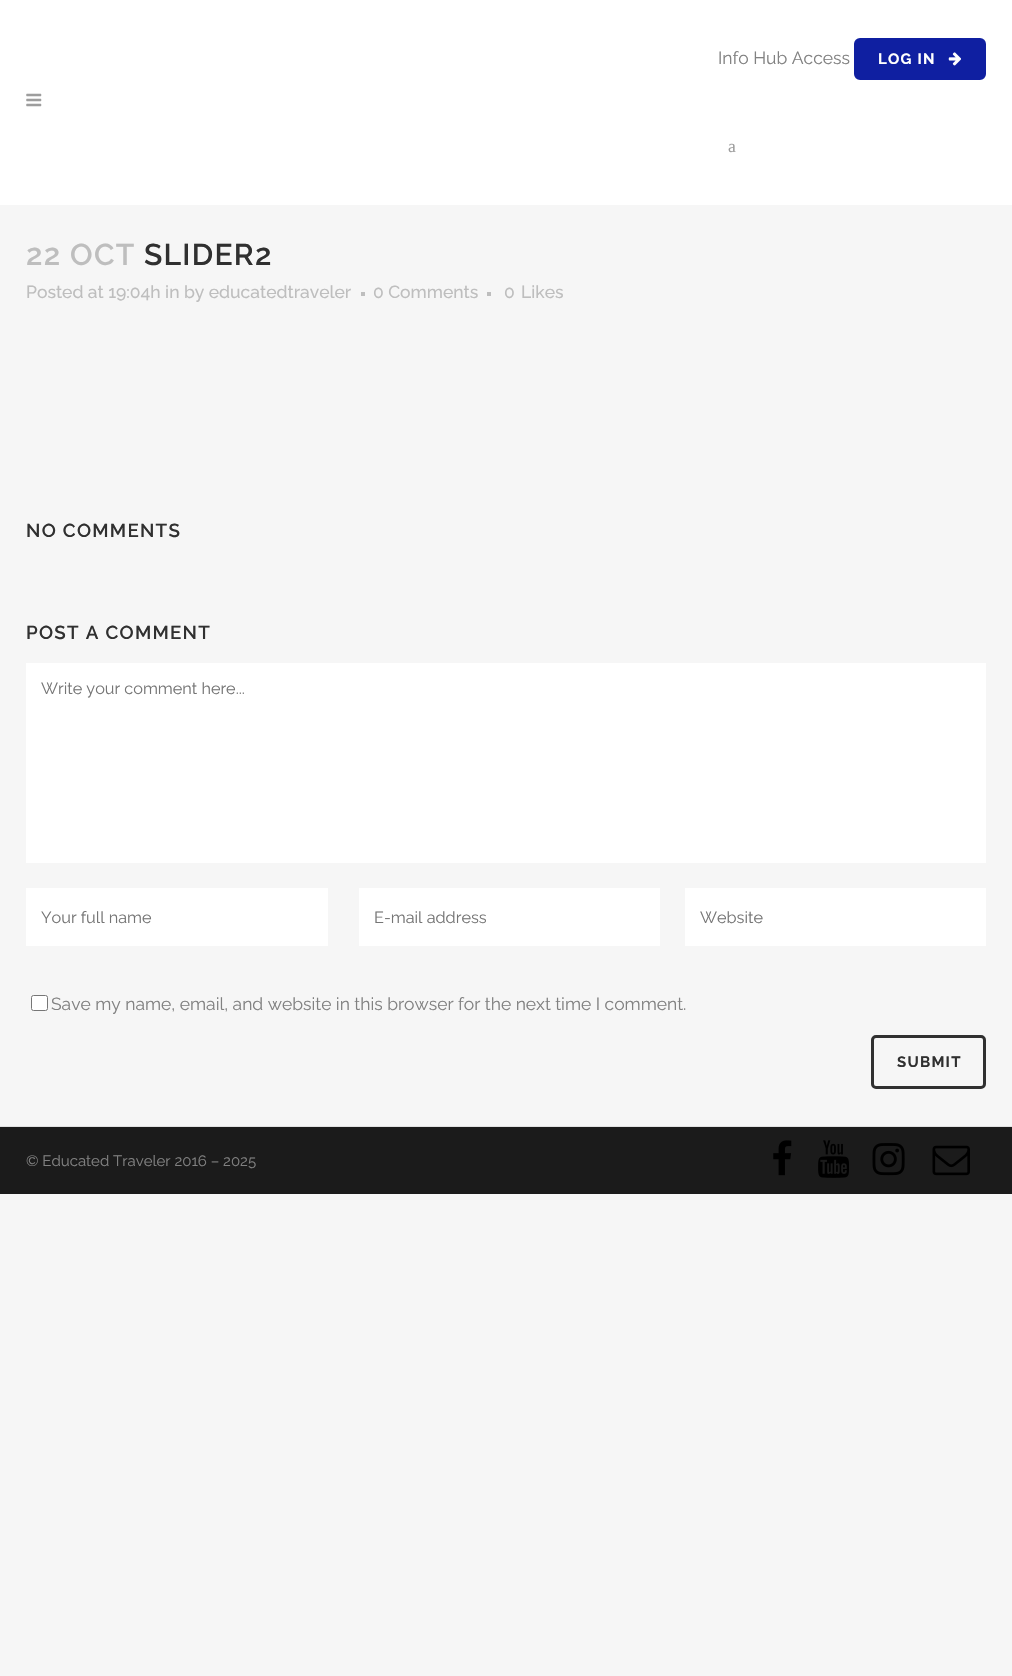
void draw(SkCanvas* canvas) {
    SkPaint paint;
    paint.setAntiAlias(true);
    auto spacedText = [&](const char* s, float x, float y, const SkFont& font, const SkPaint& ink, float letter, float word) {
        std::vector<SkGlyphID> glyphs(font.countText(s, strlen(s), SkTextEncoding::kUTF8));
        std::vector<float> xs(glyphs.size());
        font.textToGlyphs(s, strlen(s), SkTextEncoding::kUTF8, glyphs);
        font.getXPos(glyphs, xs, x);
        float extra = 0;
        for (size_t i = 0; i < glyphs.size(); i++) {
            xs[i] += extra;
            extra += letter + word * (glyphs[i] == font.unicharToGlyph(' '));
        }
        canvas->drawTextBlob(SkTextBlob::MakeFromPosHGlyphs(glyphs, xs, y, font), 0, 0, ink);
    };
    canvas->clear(0xFFF6F6F6);
    paint.setColor(0xFFFFFFFF);
    canvas->drawRect(SkRect::MakeXYWH(0, 0, 1012, 205), paint);
    canvas->drawImageRect(SkImages::DeferredFromEncodedData(SkData::MakeFromFileName("img1.png")), SkRect::MakeXYWH(26, 93, 16, 14), SkSamplingOptions());
    SkFont font1(fontMgr->matchFamilyStyle("Raleway", SkFontStyle::Normal()), 17.5f);
    font1.setSubpixel(true);
    paint.setColor(0xFF818181);
    canvas->drawString("Info Hub Access", 718, 64, font1, paint);
    paint.setColor(0xFF0F1FA1);
    canvas->drawRoundRect(SkRect::MakeXYWH(855.5f, 39.5f, 129, 39), 4.5f, 4.5f, paint);
    paint.setStyle(SkPaint::kStroke_Style);
    paint.setStrokeWidth(3);
    canvas->drawRoundRect(SkRect::MakeXYWH(855.5f, 39.5f, 129, 39), 4.5f, 4.5f, paint);
    SkFont font2(fontMgr->matchFamilyStyle("Raleway", SkFontStyle::Bold()), 15);
    font2.setSubpixel(true);
    paint.setStyle(SkPaint::kFill_Style);
    paint.setColor(0xFFFFFFFF);
    spacedText("LOG IN", 878, 64, font2, paint, 1.25f, 0);
    canvas->drawImageRect(SkImages::DeferredFromEncodedData(SkData::MakeFromFileName("img2.png")), SkRect::MakeXYWH(948, 52, 13, 14), SkSamplingOptions());
    SkFont font3(fontMgr->matchFamilyStyle("Liberation Serif", SkFontStyle::Normal()), 17.5f);
    font3.setSubpixel(true);
    paint.setColor(0xFF9D9D9D);
    canvas->drawString("a", 728, 152, font3, paint);
    SkFont font4(fontMgr->matchFamilyStyle("Raleway", SkFontStyle(600, SkFontStyle::kNormal_Width, SkFontStyle::kUpright_Slant)), 30);
    font4.setSubpixel(true);
    paint.setColor(0xFFBEBEBE);
    spacedText("22 OCT", 26, 265, font4, paint, 1.25f, 0);
    paint.setColor(0xFF303030);
    spacedText("SLIDER2", 144, 265, font4, paint, 1.25f, 0);
    SkFont font5(fontMgr->matchFamilyStyle("Raleway", SkFontStyle(500, SkFontStyle::kNormal_Width, SkFontStyle::kUpright_Slant)), 17.5f);
    font5.setSubpixel(true);
    paint.setColor(0xFFBEBEBE);
    canvas->drawString("Posted at 19:04h in by educatedtraveler", 26, 298, font5, paint);
    canvas->drawRect(SkRect::MakeXYWH(361, 292, 4, 4), paint);
    canvas->drawString("0 Comments", 373, 298, font5, paint);
    canvas->drawRect(SkRect::MakeXYWH(487, 292, 4, 4), paint);
    canvas->drawString("0", 504, 298, font5, paint);
    canvas->drawString("Likes", 521, 298, font5, paint);
    SkFont font6(fontMgr->matchFamilyStyle("Raleway", SkFontStyle(600, SkFontStyle::kNormal_Width, SkFontStyle::kUpright_Slant)), 18.75f);
    font6.setSubpixel(true);
    paint.setColor(0xFF303030);
    spacedText("NO COMMENTS", 26, 537, font6, paint, 1.25f, 0);
    spacedText("POST A COMMENT", 26, 639, font6, paint, 1.25f, 0);
    paint.setColor(0xFFFFFFFF);
    canvas->drawRect(SkRect::MakeXYWH(26, 663, 960, 200), paint);
    SkFont font7(fontMgr->matchFamilyStyle("Raleway", SkFontStyle::Normal()), 16.25f);
    font7.setSubpixel(true);
    paint.setColor(0xFF757575);
    canvas->drawString("Write your comment here...", 41, 694, font7, paint);
    paint.setColor(0xFFFFFFFF);
    canvas->drawRect(SkRect::MakeXYWH(26, 888, 302, 58), paint);
    paint.setColor(0xFF757575);
    canvas->drawString("Your full name", 41, 923, font7, paint);
    paint.setColor(0xFFFFFFFF);
    canvas->drawRect(SkRect::MakeXYWH(359, 888, 301, 58), paint);
    paint.setColor(0xFF757575);
    canvas->drawString("E-mail address", 374, 923, font7, paint);
    paint.setColor(0xFFFFFFFF);
    canvas->drawRect(SkRect::MakeXYWH(685, 888, 301, 58), paint);
    paint.setColor(0xFF757575);
    canvas->drawString("Website", 700, 923, font7, paint);
    paint.setColor(0xFFFFFFFF);
    canvas->drawRoundRect(SkRect::MakeXYWH(31.5f, 995.5f, 16, 15), 2, 2, paint);
    paint.setStyle(SkPaint::kStroke_Style);
    paint.setStrokeWidth(1);
    paint.setColor(0xFF767676);
    canvas->drawRoundRect(SkRect::MakeXYWH(31.5f, 995.5f, 16, 15), 2, 2, paint);
    paint.setStyle(SkPaint::kFill_Style);
    paint.setColor(0xFF818181);
    canvas->drawString("Save my name, email, and website in this browser for the next time I comment.", 51, 1010, font1, paint);
    paint.setStyle(SkPaint::kStroke_Style);
    paint.setStrokeWidth(3);
    paint.setColor(0xFF303030);
    canvas->drawRoundRect(SkRect::MakeXYWH(872.5f, 1036.5f, 112, 51), 3.5f, 3.5f, paint);
    paint.setStyle(SkPaint::kFill_Style);
    spacedText("SUBMIT", 897, 1067, font2, paint, 1.25f, 0);
    paint.setColor(0xFF1B1B1B);
    canvas->drawRect(SkRect::MakeXYWH(0, 1127, 1012, 67), paint);
    paint.setColor(0xFFE1E1E1);
    canvas->drawRect(SkRect::MakeXYWH(0, 1126, 1012, 1), paint);
    SkFont font8(fontMgr->matchFamilyStyle("Raleway", SkFontStyle::Normal()), 15);
    font8.setSubpixel(true);
    paint.setColor(0xFF818181);
    canvas->drawString("© Educated Traveler 2016 – 2025", 26, 1166, font8, paint);
    canvas->drawImageRect(SkImages::DeferredFromEncodedData(SkData::MakeFromFileName("img3.png")), SkRect::MakeXYWH(773, 1140, 19, 36), SkSamplingOptions());
    canvas->drawImageRect(SkImages::DeferredFromEncodedData(SkData::MakeFromFileName("img4.png")), SkRect::MakeXYWH(818, 1140, 31, 38), SkSamplingOptions());
    canvas->drawImageRect(SkImages::DeferredFromEncodedData(SkData::MakeFromFileName("img5.png")), SkRect::MakeXYWH(872, 1143, 33, 33), SkSamplingOptions());
    canvas->drawImageRect(SkImages::DeferredFromEncodedData(SkData::MakeFromFileName("img6.png")), SkRect::MakeXYWH(932, 1145, 38, 31), SkSamplingOptions());
}
